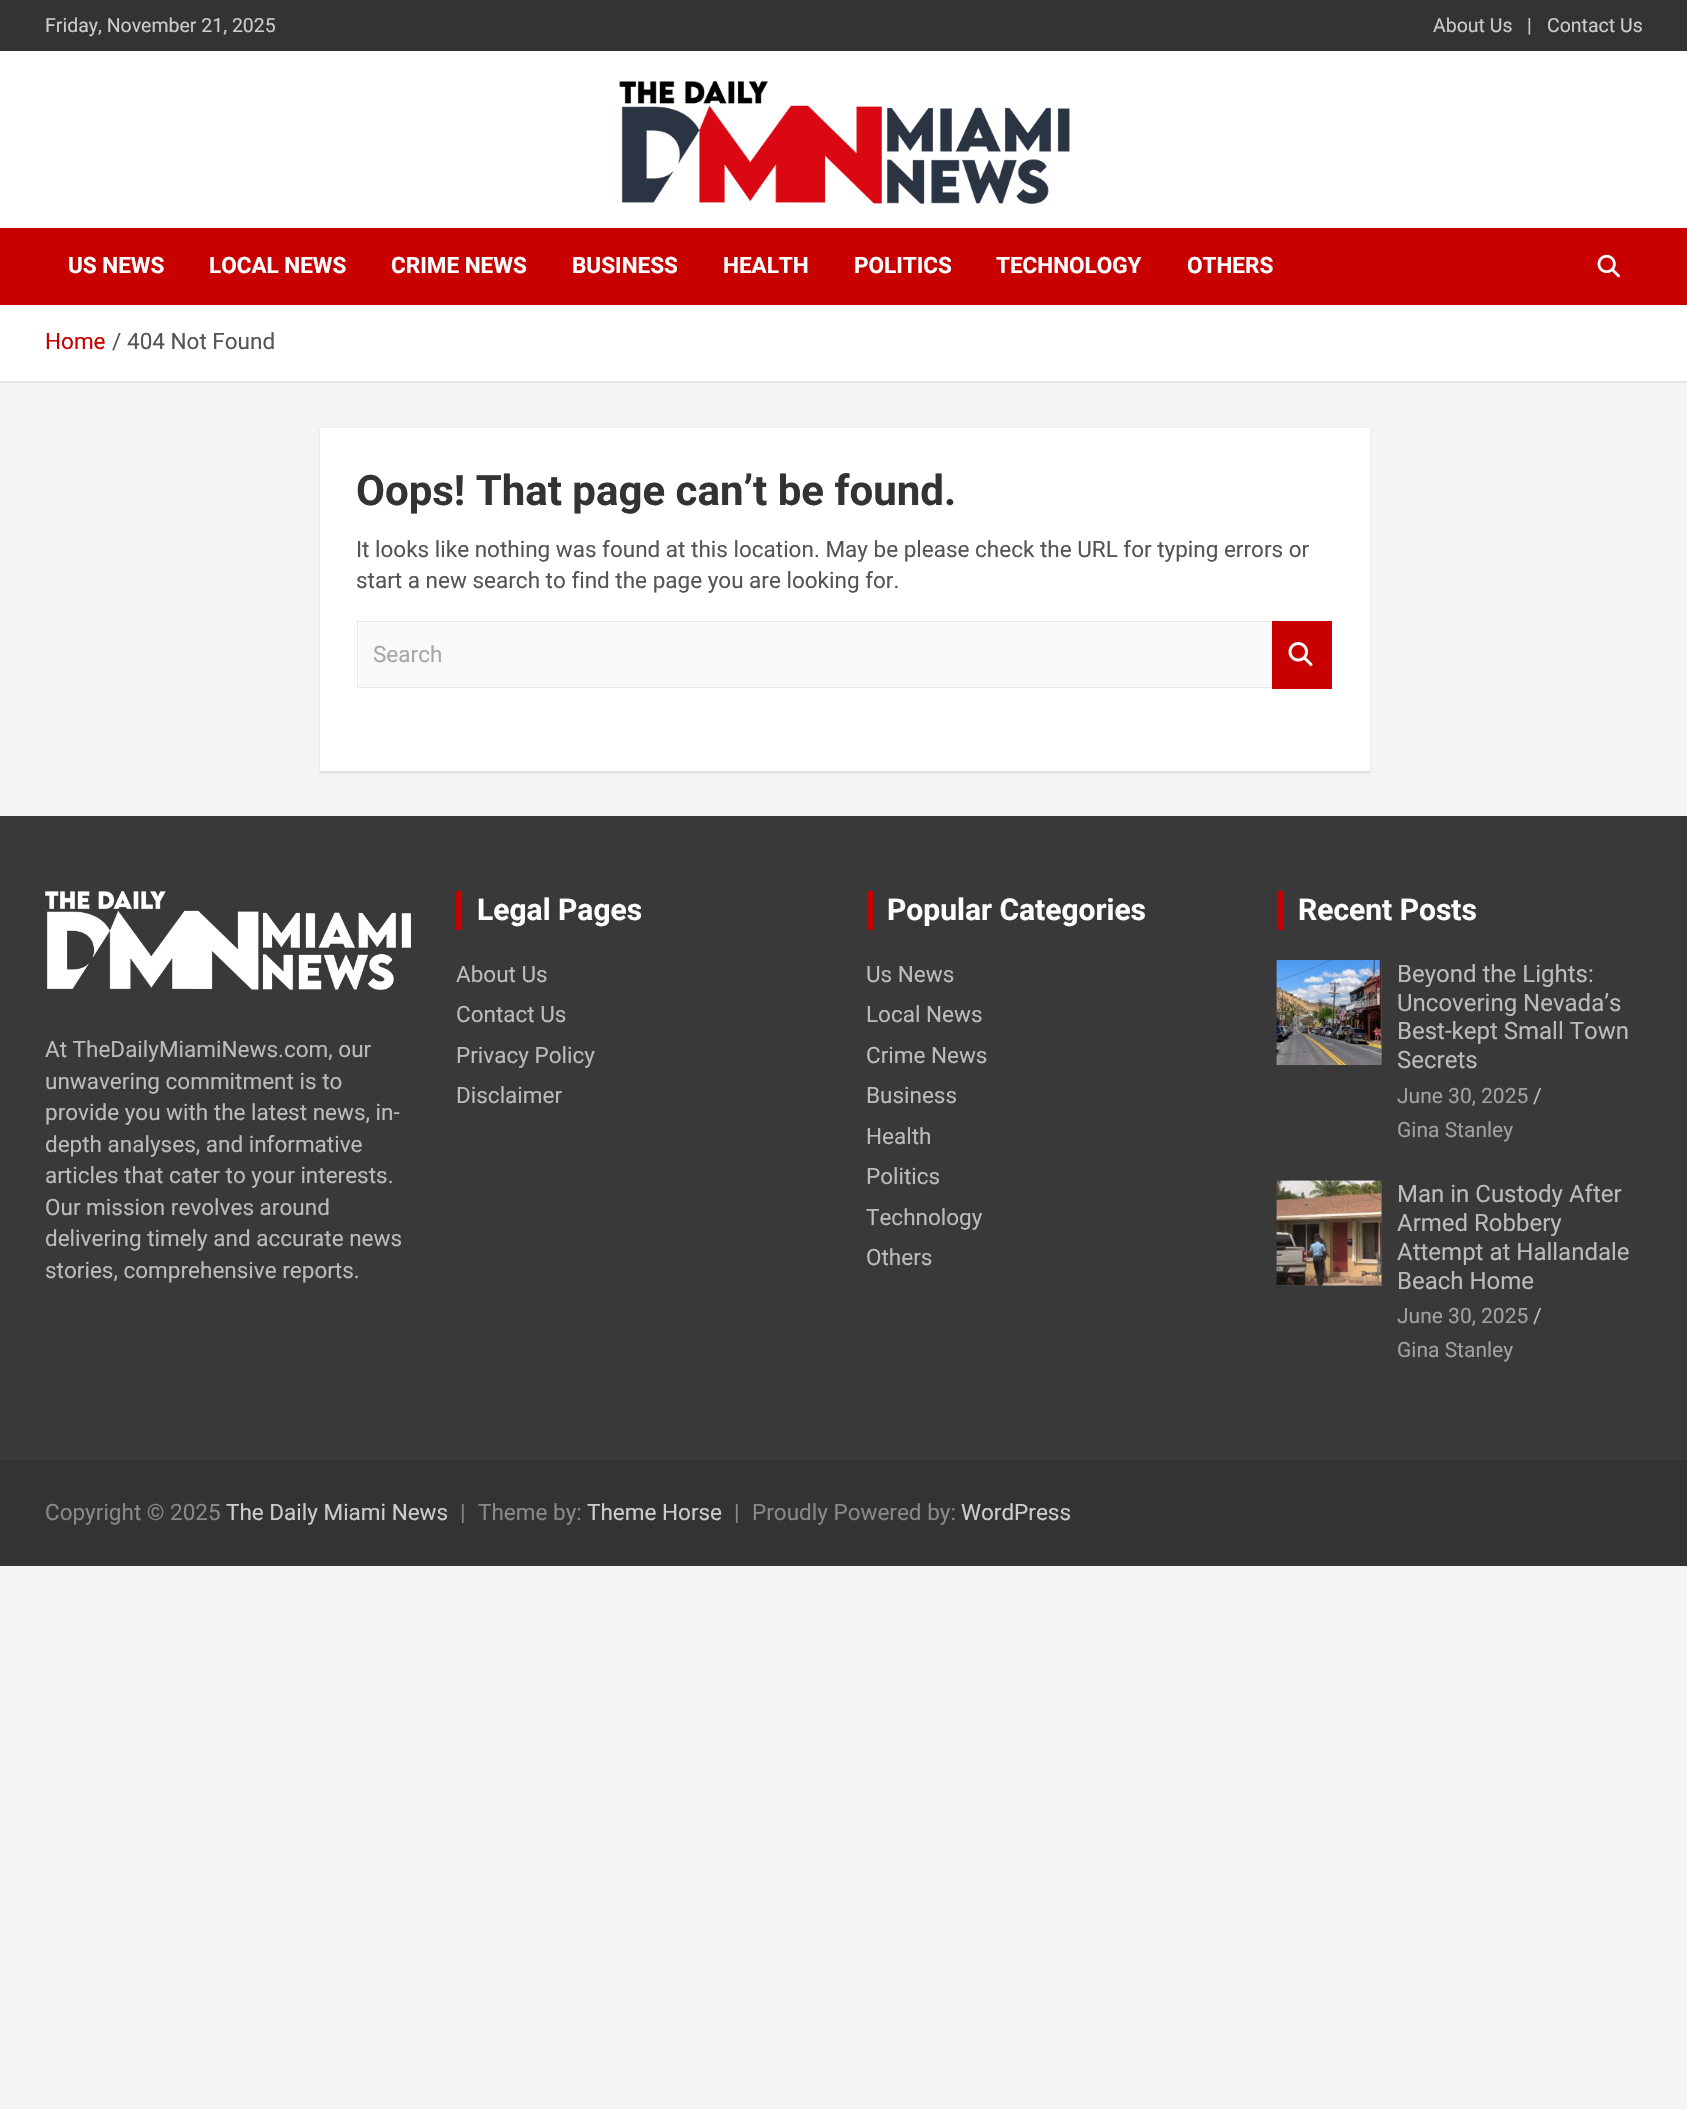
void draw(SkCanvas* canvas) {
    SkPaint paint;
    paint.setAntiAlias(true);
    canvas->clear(0xFFF4F4F4);
    paint.setColor(0xFF333333);
    canvas->drawRect(SkRect::MakeXYWH(0, 0, 1687, 51), paint);
    SkFont font1(fontMgr->matchFamilyStyle("Roboto", SkFontStyle::Normal()), 19.5f);
    font1.setSubpixel(true);
    paint.setColor(0xFFCCCCCC);
    canvas->drawString("Friday, November 21, 2025", 45, 32, font1, paint);
    canvas->drawString("About Us", 1433, 32, font1, paint);
    canvas->drawString("|", 1527, 32, font1, paint);
    canvas->drawString("Contact Us", 1547, 32, font1, paint);
    paint.setColor(0xFFFFFFFF);
    canvas->drawRect(SkRect::MakeXYWH(0, 51, 1687, 177), paint);
    canvas->drawImageRect(SkImages::DeferredFromEncodedData(SkData::MakeFromFileName("img1.png")), SkRect::MakeXYWH(619, 81, 451, 123), SkSamplingOptions());
    paint.setColor(0xFFC80000);
    canvas->drawRect(SkRect::MakeXYWH(0, 228, 1687, 77), paint);
    SkFont font2(fontMgr->matchFamilyStyle("Roboto", SkFontStyle::Bold()), 22.5f);
    font2.setSubpixel(true);
    paint.setColor(0xFFFFFFFF);
    canvas->drawString("US NEWS", 68, 273, font2, paint);
    canvas->drawString("LOCAL NEWS", 209, 273, font2, paint);
    canvas->drawString("CRIME NEWS", 391, 273, font2, paint);
    canvas->drawString("BUSINESS", 572, 273, font2, paint);
    canvas->drawString("HEALTH", 723, 273, font2, paint);
    canvas->drawString("POLITICS", 854, 273, font2, paint);
    canvas->drawString("TECHNOLOGY", 996, 273, font2, paint);
    canvas->drawString("OTHERS", 1187, 273, font2, paint);
    canvas->drawImageRect(SkImages::DeferredFromEncodedData(SkData::MakeFromFileName("img2.png")), SkRect::MakeXYWH(1597, 254, 23, 24), SkSamplingOptions());
    canvas->drawRect(SkRect::MakeXYWH(0, 305, 1687, 76), paint);
    paint.setColor(0xFFE6E6E6);
    canvas->drawRect(SkRect::MakeXYWH(0, 381, 1687, 2), paint);
    SkFont font3(fontMgr->matchFamilyStyle("Roboto", SkFontStyle::Normal()), 22.5f);
    font3.setSubpixel(true);
    paint.setColor(0xFFC80000);
    canvas->drawString("Home", 45, 349, font3, paint);
    paint.setColor(0xFF555555);
    canvas->drawString("/", 112, 349, font3, paint);
    canvas->drawString("404 Not Found", 127, 349, font3, paint);
    paint.setColor(0x1A000000);
    paint.setMaskFilter(SkMaskFilter::MakeBlur(kNormal_SkBlurStyle, 1));
    canvas->drawRect(SkRect::MakeXYWH(320, 429, 1050, 344), paint);
    paint.setMaskFilter(nullptr);
    paint.setColor(0xFFFFFFFF);
    canvas->drawRect(SkRect::MakeXYWH(320, 428, 1050, 343), paint);
    SkFont font4(fontMgr->matchFamilyStyle("Roboto", SkFontStyle::Bold()), 42);
    font4.setSubpixel(true);
    paint.setColor(0xFF333333);
    canvas->drawString("Oops! That page can’t be found.", 356, 505, font4, paint);
    paint.setColor(0xFF555555);
    canvas->drawString("It looks like nothing was found at this location. May be please check the URL for typing errors or", 356, 557, font3, paint);
    canvas->drawString("start a new search to find the page you are looking for.", 356, 588, font3, paint);
    paint.setColor(0xFFF9F9F9);
    canvas->drawRect(SkRect::MakeXYWH(359, 623, 913, 64), paint);
    paint.setColor(0xFFE8E8E8);
    canvas->drawPath(SkPathBuilder().moveTo(357, 621).lineTo(1272, 621).lineTo(1272, 622).lineTo(358, 622).close().detach(), paint);
    canvas->drawPath(SkPathBuilder().moveTo(1272, 688).lineTo(357, 688).lineTo(358, 687).lineTo(1272, 687).close().detach(), paint);
    paint.setColor(0x17000000);
    canvas->drawPath(SkPathBuilder().moveTo(357, 688).lineTo(357, 621).lineTo(358, 622).lineTo(358, 687).close().detach(), paint);
    paint.setColor(0xFFA7A7A7);
    canvas->drawString("Search", 373, 662, font3, paint);
    paint.setColor(0xFFC80000);
    canvas->drawRect(SkRect::MakeXYWH(1272, 621, 60, 68), paint);
    canvas->drawImageRect(SkImages::DeferredFromEncodedData(SkData::MakeFromFileName("img3.png")), SkRect::MakeXYWH(1288, 642, 25, 24), SkSamplingOptions());
    paint.setColor(0xFF393939);
    canvas->drawRect(SkRect::MakeXYWH(0, 816, 1687, 644), paint);
    canvas->drawImageRect(SkImages::DeferredFromEncodedData(SkData::MakeFromFileName("img4.png")), SkRect::MakeXYWH(45, 891, 366, 99), SkSamplingOptions());
    paint.setColor(0xFFBBBBBB);
    canvas->drawString("At TheDailyMiamiNews.com, our", 45, 1057, font3, paint);
    canvas->drawString("unwavering commitment is to", 45, 1089, font3, paint);
    canvas->drawString("provide you with the latest news, in-", 45, 1120, font3, paint);
    canvas->drawString("depth analyses, and informative", 45, 1152, font3, paint);
    canvas->drawString("articles that cater to your interests.", 45, 1183, font3, paint);
    canvas->drawString("Our mission revolves around", 45, 1215, font3, paint);
    canvas->drawString("delivering timely and accurate news", 45, 1246, font3, paint);
    canvas->drawString("stories, comprehensive reports.", 45, 1278, font3, paint);
    paint.setColor(0xFFC80000);
    canvas->drawRect(SkRect::MakeXYWH(456, 891, 6, 39), paint);
    SkFont font5(fontMgr->matchFamilyStyle("Roboto", SkFontStyle::Bold()), 30);
    font5.setSubpixel(true);
    paint.setColor(0xFFFFFFFF);
    canvas->drawString("Legal Pages", 477, 920, font5, paint);
    paint.setColor(0xFFBBBBBB);
    canvas->drawString("About Us", 456, 982, font3, paint);
    canvas->drawString("Contact Us", 456, 1022, font3, paint);
    canvas->drawString("Privacy Policy", 456, 1063, font3, paint);
    canvas->drawString("Disclaimer", 456, 1103, font3, paint);
    paint.setColor(0xFFC80000);
    canvas->drawRect(SkRect::MakeXYWH(867, 891, 6, 39), paint);
    paint.setColor(0xFFFFFFFF);
    canvas->drawString("Popular Categories", 887, 920, font5, paint);
    paint.setColor(0xFFBBBBBB);
    canvas->drawString("Us News", 866, 982, font3, paint);
    canvas->drawString("Local News", 866, 1022, font3, paint);
    canvas->drawString("Crime News", 866, 1063, font3, paint);
    canvas->drawString("Business", 866, 1103, font3, paint);
    canvas->drawString("Health", 866, 1144, font3, paint);
    canvas->drawString("Politics", 866, 1184, font3, paint);
    canvas->drawString("Technology", 866, 1225, font3, paint);
    canvas->drawString("Others", 866, 1265, font3, paint);
    paint.setColor(0xFFC80000);
    canvas->drawRect(SkRect::MakeXYWH(1277, 891, 6, 39), paint);
    paint.setColor(0xFFFFFFFF);
    canvas->drawString("Recent Posts", 1298, 920, font5, paint);
    paint.setColor(0xFF555555);
    canvas->drawRect(SkRect::MakeXYWH(1381, 960, 1, 105), paint);
    canvas->drawImageRect(SkImages::DeferredFromEncodedData(SkData::MakeFromFileName("img5.png")), SkRect::MakeXYWH(1276, 960, 106, 105), SkSamplingOptions());
    SkFont font6(fontMgr->matchFamilyStyle("Roboto", SkFontStyle::Normal()), 24);
    font6.setSubpixel(true);
    paint.setColor(0xFFBBBBBB);
    canvas->drawString("Beyond the Lights:", 1397, 982, font6, paint);
    canvas->drawString("Uncovering Nevada’s", 1397, 1011, font6, paint);
    canvas->drawString("Best-kept Small Town", 1397, 1039, font6, paint);
    canvas->drawString("Secrets", 1397, 1068, font6, paint);
    SkFont font7(fontMgr->matchFamilyStyle("Roboto", SkFontStyle::Normal()), 21);
    font7.setSubpixel(true);
    paint.setColor(0xFFA1A1A1);
    canvas->drawString("June 30, 2025", 1397, 1103, font7, paint);
    paint.setColor(0xFFBBBBBB);
    canvas->drawString("/", 1533, 1103, font7, paint);
    paint.setColor(0xFFA1A1A1);
    canvas->drawString("Gina Stanley", 1397, 1137, font7, paint);
    paint.setColor(0xFF555555);
    canvas->drawRect(SkRect::MakeXYWH(1277, 1181, 105, 105), paint);
    canvas->drawImageRect(SkImages::DeferredFromEncodedData(SkData::MakeFromFileName("img6.png")), SkRect::MakeXYWH(1276, 1180, 106, 106), SkSamplingOptions());
    paint.setColor(0xFFBBBBBB);
    canvas->drawString("Man in Custody After", 1397, 1202, font6, paint);
    canvas->drawString("Armed Robbery", 1397, 1231, font6, paint);
    canvas->drawString("Attempt at Hallandale", 1397, 1260, font6, paint);
    canvas->drawString("Beach Home", 1397, 1289, font6, paint);
    paint.setColor(0xFFA1A1A1);
    canvas->drawString("June 30, 2025", 1397, 1323, font7, paint);
    paint.setColor(0xFFBBBBBB);
    canvas->drawString("/", 1533, 1323, font7, paint);
    paint.setColor(0xFFA1A1A1);
    canvas->drawString("Gina Stanley", 1397, 1357, font7, paint);
    paint.setColor(0xFF333333);
    canvas->drawRect(SkRect::MakeXYWH(0, 1460, 1687, 106), paint);
    paint.setColor(0xFF888888);
    canvas->drawString("Copyright © 2025", 45, 1520, font3, paint);
    paint.setColor(0xFFCCCCCC);
    canvas->drawString("The Daily Miami News", 226, 1520, font3, paint);
    paint.setColor(0xFF888888);
    canvas->drawString("|", 460, 1520, font3, paint);
    canvas->drawString("Theme by:", 478, 1520, font3, paint);
    paint.setColor(0xFFCCCCCC);
    canvas->drawString("Theme Horse", 587, 1520, font3, paint);
    paint.setColor(0xFF888888);
    canvas->drawString("|", 734, 1520, font3, paint);
    canvas->drawString("Proudly Powered by:", 752, 1520, font3, paint);
    paint.setColor(0xFFCCCCCC);
    canvas->drawString("WordPress", 961, 1520, font3, paint);
}
